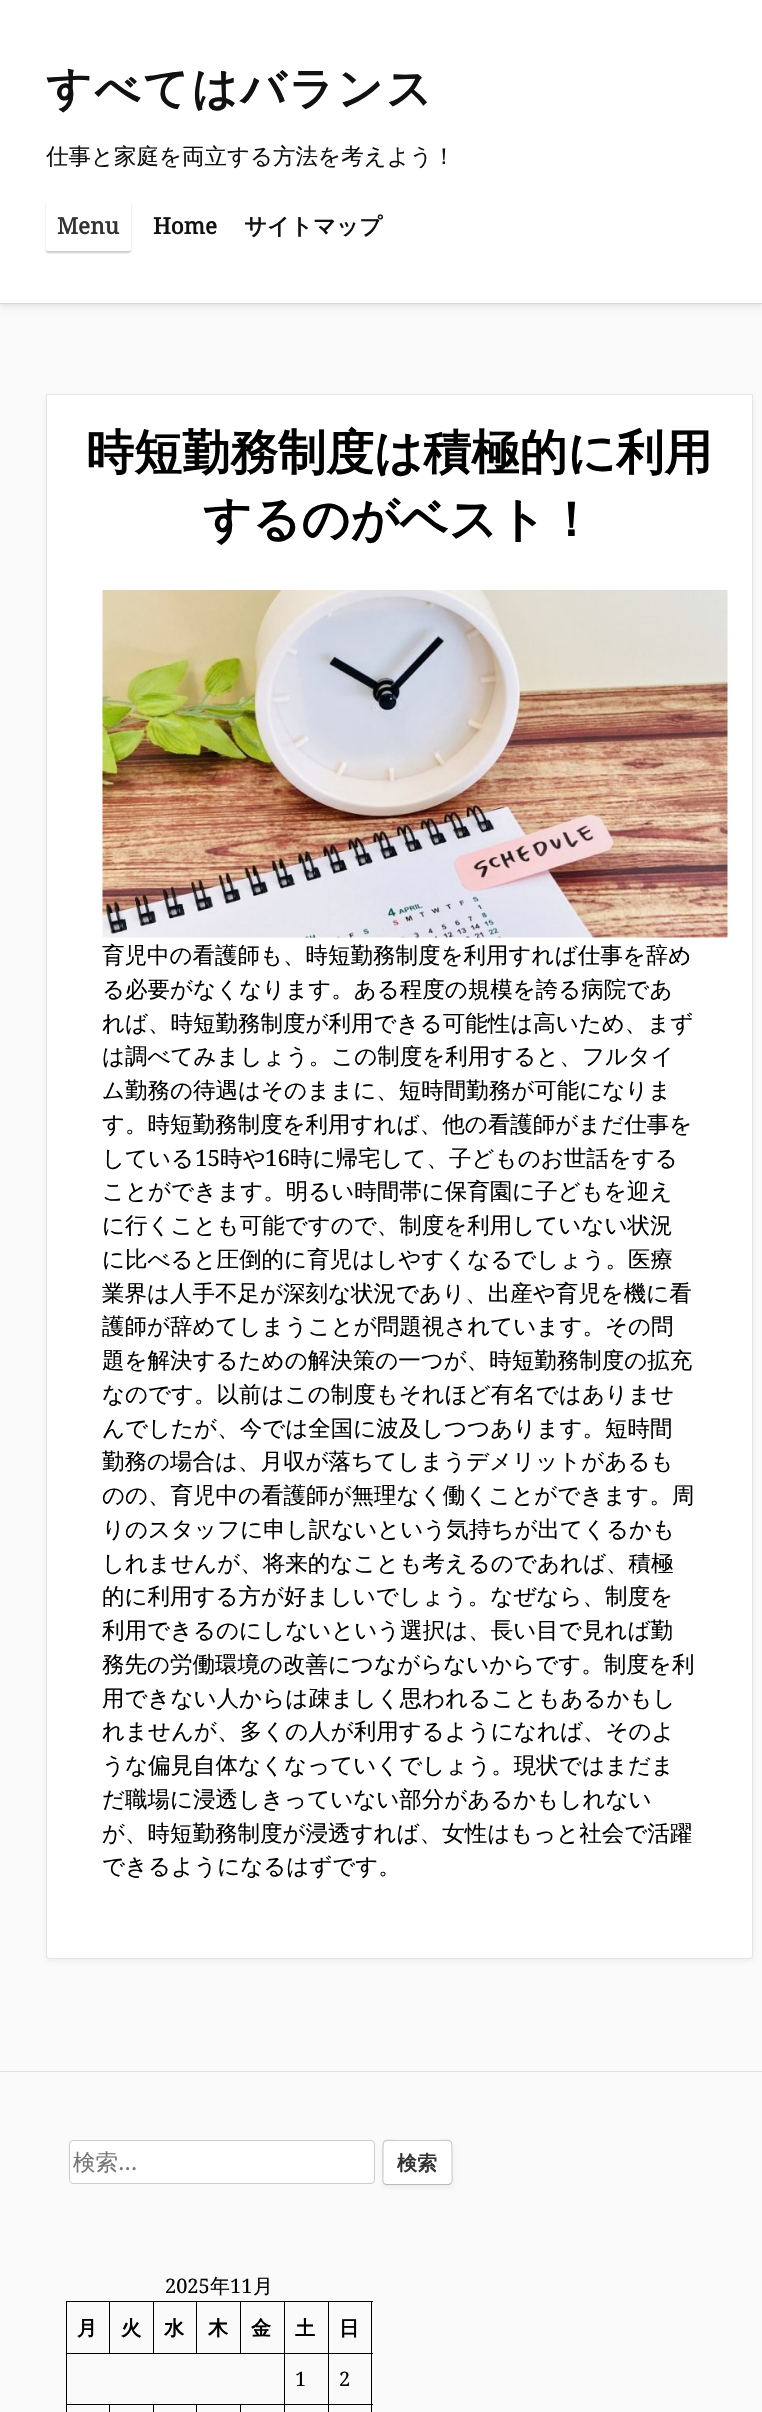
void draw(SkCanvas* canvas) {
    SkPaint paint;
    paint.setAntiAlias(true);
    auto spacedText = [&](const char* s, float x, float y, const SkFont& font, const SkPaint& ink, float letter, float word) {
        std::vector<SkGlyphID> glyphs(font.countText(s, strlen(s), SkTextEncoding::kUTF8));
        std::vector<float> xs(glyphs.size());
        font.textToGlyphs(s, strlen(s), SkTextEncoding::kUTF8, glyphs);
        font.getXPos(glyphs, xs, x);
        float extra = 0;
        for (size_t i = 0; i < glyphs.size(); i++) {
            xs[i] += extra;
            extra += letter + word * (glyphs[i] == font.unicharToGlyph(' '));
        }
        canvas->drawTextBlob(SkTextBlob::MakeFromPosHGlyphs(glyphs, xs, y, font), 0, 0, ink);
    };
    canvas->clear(0xFFFAFAFA);
    paint.setColor(0x1A000000);
    paint.setMaskFilter(SkMaskFilter::MakeBlur(kNormal_SkBlurStyle, 3));
    canvas->drawRect(SkRect::MakeXYWH(0, 3, 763, 303), paint);
    paint.setMaskFilter(nullptr);
    paint.setColor(0xFFFFFFFF);
    canvas->drawRect(SkRect::MakeXYWH(0, 0, 762, 303), paint);
    paint.setColor(0xFFD9D9D9);
    canvas->drawRect(SkRect::MakeXYWH(0, 303, 762, 1), paint);
    SkFont font1(fontMgr->matchFamilyStyle("WenQuanYi Zen Hei", SkFontStyle::Bold()), 45);
    font1.setSubpixel(true);
    paint.setColor(0xFF111111);
    spacedText("すべてはバランス", 46, 104, font1, paint, 2.5f, 0);
    SkFont font2(fontMgr->matchFamilyStyle("WenQuanYi Zen Hei", SkFontStyle(500, SkFontStyle::kNormal_Width, SkFontStyle::kUpright_Slant)), 22.5f);
    font2.setSubpixel(true);
    canvas->drawString("仕事と家庭を両立する方法を考えよう！", 46, 164, font2, paint);
    paint.setColor(0x33000000);
    paint.setMaskFilter(SkMaskFilter::MakeBlur(kNormal_SkBlurStyle, 1));
    canvas->drawRoundRect(SkRect::MakeXYWH(46, 203, 85, 50), 2.5f, 2.5f, paint);
    paint.setMaskFilter(nullptr);
    paint.setColor(0xFFFFFFFF);
    canvas->drawRoundRect(SkRect::MakeXYWH(46, 201, 85, 50), 2.5f, 2.5f, paint);
    SkFont font3(fontMgr->matchFamilyStyle("Noto Serif", SkFontStyle::Bold()), 22.5f);
    font3.setSubpixel(true);
    paint.setColor(0xFF333333);
    canvas->drawString("Menu", 57, 234, font3, paint);
    paint.setColor(0xFF111111);
    canvas->drawString("Home", 153, 234, font3, paint);
    SkFont font4(fontMgr->matchFamilyStyle("WenQuanYi Zen Hei", SkFontStyle::Bold()), 22.5f);
    font4.setSubpixel(true);
    canvas->drawString("サイトマップ", 244, 234, font4, paint);
    paint.setColor(0x0D000000);
    paint.setMaskFilter(SkMaskFilter::MakeBlur(kNormal_SkBlurStyle, 2));
    canvas->drawRoundRect(SkRect::MakeXYWH(46, 396, 707, 1565), 4, 4, paint);
    paint.setMaskFilter(nullptr);
    paint.setColor(0xFFFFFFFF);
    canvas->drawPath(SkPathBuilder().moveTo(46, 394).lineTo(753, 394).lineTo(753, 1955).cubicTo(753, 1957, 751, 1959, 749, 1959).lineTo(50, 1959).cubicTo(48, 1959, 46, 1957, 46, 1955).close().detach(), paint);
    paint.setStyle(SkPaint::kStroke_Style);
    paint.setStrokeWidth(1);
    paint.setColor(0x1A000000);
    canvas->drawPath(SkPathBuilder().moveTo(46.5f, 394.5f).lineTo(752.5f, 394.5f).lineTo(752.5f, 1955).cubicTo(752.5f, 1957, 751, 1958.5f, 749, 1958.5f).lineTo(50, 1958.5f).cubicTo(48, 1958.5f, 46.5f, 1957, 46.5f, 1955).close().detach(), paint);
    SkFont font5(fontMgr->matchFamilyStyle("WenQuanYi Zen Hei", SkFontStyle::Bold()), 48);
    font5.setSubpixel(true);
    paint.setStyle(SkPaint::kFill_Style);
    paint.setColor(0xFF000000);
    canvas->drawString("時短勤務制度は積極的に利用", 86, 469, font5, paint);
    canvas->drawString("するのがベスト！", 203, 536, font5, paint);
    canvas->drawImageRect(SkImages::DeferredFromEncodedData(SkData::MakeFromFileName("img1.png")), SkRect::MakeXYWH(102, 590, 626, 348), SkSamplingOptions());
    canvas->drawString("育児中の看護師も、時短勤務制度を利用すれば仕事を辞め", 102, 963, font2, paint);
    canvas->drawString("る必要がなくなります。ある程度の規模を誇る病院であ", 102, 997, font2, paint);
    canvas->drawString("れば、時短勤務制度が利用できる可能性は高いため、まず", 102, 1031, font2, paint);
    canvas->drawString("は調べてみましょう。この制度を利用すると、フルタイ", 102, 1064, font2, paint);
    canvas->drawString("ム勤務の待遇はそのままに、短時間勤務が可能になりま", 102, 1098, font2, paint);
    canvas->drawString("す。時短勤務制度を利用すれば、他の看護師がまだ仕事を", 102, 1132, font2, paint);
    canvas->drawString("している", 102, 1166, font2, paint);
    SkFont font6(fontMgr->matchFamilyStyle("Noto Serif", SkFontStyle::Normal()), 22.5f);
    font6.setSubpixel(true);
    canvas->drawString("15", 195, 1166, font6, paint);
    canvas->drawString("時や", 220, 1166, font2, paint);
    canvas->drawString("16", 265, 1166, font6, paint);
    canvas->drawString("時に帰宅して、子どものお世話をする", 290, 1166, font2, paint);
    canvas->drawString("ことができます。明るい時間帯に保育園に子どもを迎え", 102, 1199, font2, paint);
    canvas->drawString("に行くことも可能ですので、制度を利用していない状況", 102, 1233, font2, paint);
    canvas->drawString("に比べると圧倒的に育児はしやすくなるでしょう。医療", 102, 1267, font2, paint);
    canvas->drawString("業界は人手不足が深刻な状況であり、出産や育児を機に看", 102, 1301, font2, paint);
    canvas->drawString("護師が辞めてしまうことが問題視されています。その問", 102, 1334, font2, paint);
    canvas->drawString("題を解決するための解決策の一つが、時短勤務制度の拡充", 102, 1368, font2, paint);
    canvas->drawString("なのです。以前はこの制度もそれほど有名ではありませ", 102, 1402, font2, paint);
    canvas->drawString("んでしたが、今では全国に波及しつつあります。短時間", 102, 1436, font2, paint);
    canvas->drawString("勤務の場合は、月収が落ちてしまうデメリットがあるも", 102, 1469, font2, paint);
    canvas->drawString("のの、育児中の看護師が無理なく働くことができます。周", 102, 1503, font2, paint);
    canvas->drawString("りのスタッフに申し訳ないという気持ちが出てくるかも", 102, 1537, font2, paint);
    canvas->drawString("しれませんが、将来的なことも考えるのであれば、積極", 102, 1571, font2, paint);
    canvas->drawString("的に利用する方が好ましいでしょう。なぜなら、制度を", 102, 1604, font2, paint);
    canvas->drawString("利用できるのにしないという選択は、長い目で見れば勤", 102, 1638, font2, paint);
    canvas->drawString("務先の労働環境の改善につながらないからです。制度を利", 102, 1672, font2, paint);
    canvas->drawString("用できない人からは疎ましく思われることもあるかもし", 102, 1706, font2, paint);
    canvas->drawString("れませんが、多くの人が利用するようになれば、そのよ", 102, 1739, font2, paint);
    canvas->drawString("うな偏見自体なくなっていくでしょう。現状ではまだま", 102, 1773, font2, paint);
    canvas->drawString("だ職場に浸透しきっていない部分があるかもしれない", 102, 1807, font2, paint);
    canvas->drawString("が、時短勤務制度が浸透すれば、女性はもっと社会で活躍", 102, 1841, font2, paint);
    canvas->drawString("できるようになるはずです。", 102, 1874, font2, paint);
    paint.setColor(0xFFE1E1E1);
    canvas->drawRect(SkRect::MakeXYWH(0, 2071, 762, 1), paint);
    paint.setColor(0xFFFFFFFF);
    canvas->drawRoundRect(SkRect::MakeXYWH(69.5f, 2140.5f, 305, 43), 3.5f, 3.5f, paint);
    paint.setStyle(SkPaint::kStroke_Style);
    paint.setColor(0xFFCCCCCC);
    canvas->drawRoundRect(SkRect::MakeXYWH(69.5f, 2140.5f, 305, 43), 3.5f, 3.5f, paint);
    paint.setStyle(SkPaint::kFill_Style);
    paint.setColor(0xFF757575);
    canvas->drawString("検索", 73, 2170, font2, paint);
    canvas->drawString("…", 118, 2170, font6, paint);
    paint.setColor(0x0D000000);
    paint.setMaskFilter(SkMaskFilter::MakeBlur(kNormal_SkBlurStyle, 2));
    canvas->drawRoundRect(SkRect::MakeXYWH(383, 2143, 70, 45), 4, 4, paint);
    paint.setMaskFilter(nullptr);
    paint.setColor(0xFFFFFFFF);
    canvas->drawRoundRect(SkRect::MakeXYWH(383, 2140, 70, 45), 4, 4, paint);
    paint.setStyle(SkPaint::kStroke_Style);
    paint.setStrokeWidth(1.2f);
    paint.setColor(0xFFBBBBBB);
    canvas->drawPath(SkPathBuilder().moveTo(451, 2183.5f).lineTo(449, 2184.5f).lineTo(386, 2184.5f).lineTo(384, 2183.5f).detach(), paint);
    paint.setColor(0xFFCCCCCC);
    canvas->drawPath(SkPathBuilder().moveTo(384, 2183.5f).cubicTo(382, 2181.5f, 383, 2176.5f, 383, 2175).lineTo(383, 2150).cubicTo(383, 2138, 383.5f, 2140.5f, 396.5f, 2140.5f).lineTo(438.5f, 2140.5f).cubicTo(451.5f, 2140.5f, 452, 2138, 452, 2150).lineTo(452, 2175).cubicTo(452, 2176.5f, 453, 2181.5f, 451, 2183.5f).detach(), paint);
    SkFont font7(fontMgr->matchFamilyStyle("WenQuanYi Zen Hei", SkFontStyle::Bold()), 20);
    font7.setSubpixel(true);
    paint.setStyle(SkPaint::kFill_Style);
    paint.setColor(0xFF333333);
    canvas->drawString("検索", 397, 2170, font7, paint);
    SkFont font8(fontMgr->matchFamilyStyle("Noto Serif", SkFontStyle::Normal()), 20);
    font8.setSubpixel(true);
    paint.setColor(0xFF000000);
    canvas->drawString("2025", 165, 2293, font8, paint);
    SkFont font9(fontMgr->matchFamilyStyle("WenQuanYi Zen Hei", SkFontStyle(500, SkFontStyle::kNormal_Width, SkFontStyle::kUpright_Slant)), 20);
    font9.setSubpixel(true);
    canvas->drawString("年", 210, 2293, font9, paint);
    canvas->drawString("11", 230, 2293, font8, paint);
    canvas->drawString("月", 253, 2293, font9, paint);
    canvas->drawRect(SkRect::MakeXYWH(328, 2301, 45, 1), paint);
    canvas->drawRect(SkRect::MakeXYWH(328, 2353, 45, 1), paint);
    canvas->drawRect(SkRect::MakeXYWH(328, 2404, 45, 1), paint);
    canvas->drawRect(SkRect::MakeXYWH(328, 2404, 1, 8), paint);
    canvas->drawRect(SkRect::MakeXYWH(284, 2404, 45, 1), paint);
    canvas->drawRect(SkRect::MakeXYWH(328, 2353, 1, 52), paint);
    canvas->drawRect(SkRect::MakeXYWH(284, 2353, 45, 1), paint);
    canvas->drawRect(SkRect::MakeXYWH(328, 2301, 1, 53), paint);
    canvas->drawRect(SkRect::MakeXYWH(284, 2301, 45, 1), paint);
    canvas->drawRect(SkRect::MakeXYWH(284, 2404, 1, 8), paint);
    canvas->drawRect(SkRect::MakeXYWH(240, 2404, 45, 1), paint);
    canvas->drawRect(SkRect::MakeXYWH(284, 2353, 1, 52), paint);
    canvas->drawRect(SkRect::MakeXYWH(66, 2353, 219, 1), paint);
    canvas->drawRect(SkRect::MakeXYWH(284, 2301, 1, 53), paint);
    canvas->drawRect(SkRect::MakeXYWH(240, 2301, 45, 1), paint);
    canvas->drawRect(SkRect::MakeXYWH(240, 2301, 1, 53), paint);
    canvas->drawRect(SkRect::MakeXYWH(196, 2301, 45, 1), paint);
    canvas->drawRect(SkRect::MakeXYWH(196, 2301, 1, 53), paint);
    canvas->drawRect(SkRect::MakeXYWH(153, 2301, 45, 1), paint);
    canvas->drawRect(SkRect::MakeXYWH(153, 2301, 1, 53), paint);
    canvas->drawRect(SkRect::MakeXYWH(109, 2301, 45, 1), paint);
    canvas->drawRect(SkRect::MakeXYWH(109, 2301, 1, 53), paint);
    canvas->drawRect(SkRect::MakeXYWH(66, 2301, 44, 1), paint);
    canvas->drawRect(SkRect::MakeXYWH(240, 2404, 1, 8), paint);
    canvas->drawRect(SkRect::MakeXYWH(196, 2404, 45, 1), paint);
    canvas->drawRect(SkRect::MakeXYWH(196, 2404, 1, 8), paint);
    canvas->drawRect(SkRect::MakeXYWH(153, 2404, 45, 1), paint);
    canvas->drawRect(SkRect::MakeXYWH(153, 2404, 1, 8), paint);
    canvas->drawRect(SkRect::MakeXYWH(109, 2404, 45, 1), paint);
    canvas->drawRect(SkRect::MakeXYWH(109, 2404, 1, 8), paint);
    canvas->drawRect(SkRect::MakeXYWH(66, 2404, 44, 1), paint);
    canvas->drawRect(SkRect::MakeXYWH(66, 2404, 1, 8), paint);
    canvas->drawRect(SkRect::MakeXYWH(66, 2353, 1, 52), paint);
    canvas->drawRect(SkRect::MakeXYWH(66, 2301, 1, 53), paint);
    canvas->drawString("月", 77, 2335, font7, paint);
    canvas->drawString("火", 121, 2335, font7, paint);
    canvas->drawString("水", 164, 2335, font7, paint);
    canvas->drawString("木", 208, 2335, font7, paint);
    canvas->drawString("金", 251, 2335, font7, paint);
    canvas->drawString("土", 295, 2335, font7, paint);
    canvas->drawRect(SkRect::MakeXYWH(371, 2404, 1, 8), paint);
    canvas->drawRect(SkRect::MakeXYWH(371, 2353, 1, 52), paint);
    canvas->drawRect(SkRect::MakeXYWH(371, 2301, 1, 53), paint);
    canvas->drawString("日", 339, 2335, font7, paint);
    canvas->drawString("1", 295, 2386, font8, paint);
    canvas->drawString("2", 339, 2386, font8, paint);
}
